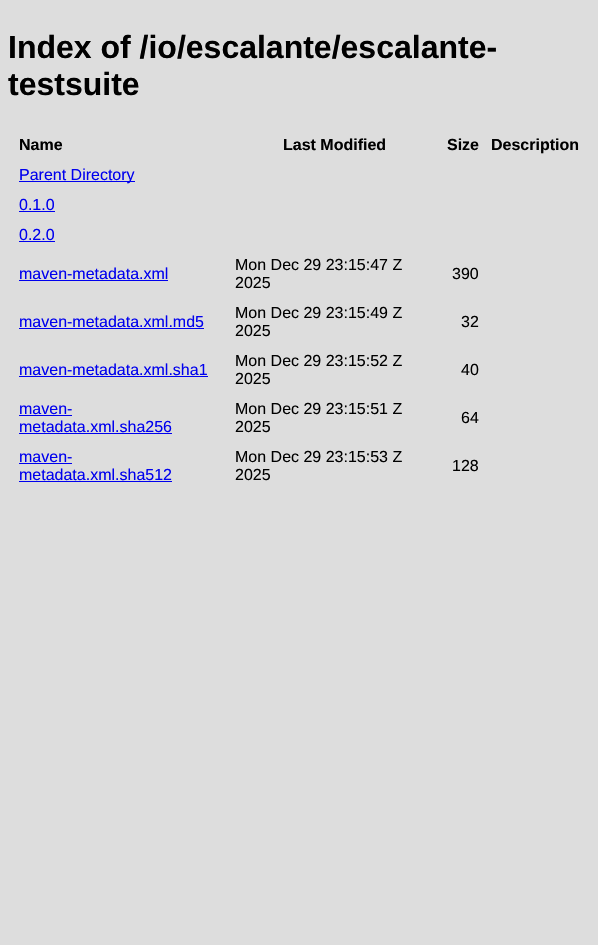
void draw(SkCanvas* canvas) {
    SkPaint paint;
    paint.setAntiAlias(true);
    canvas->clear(0xFFDDDDDD);
    SkFont font1(fontMgr->matchFamilyStyle("Liberation Sans", SkFontStyle::Bold()), 32);
    font1.setSubpixel(true);
    paint.setColor(0xFF000000);
    canvas->drawString("Index of /io/escalante/escalante-", 8, 58, font1, paint);
    canvas->drawString("testsuite", 8, 95, font1, paint);
    SkFont font2(fontMgr->matchFamilyStyle("Liberation Sans", SkFontStyle::Bold()), 16);
    font2.setSubpixel(true);
    canvas->drawString("Name", 19, 150, font2, paint);
    canvas->drawString("Last Modified", 283, 150, font2, paint);
    canvas->drawString("Size", 447, 150, font2, paint);
    canvas->drawString("Description", 491, 150, font2, paint);
    paint.setColor(0xFF0000EE);
    canvas->drawRect(SkRect::MakeXYWH(19, 181, 116, 1), paint);
    SkFont font3(fontMgr->matchFamilyStyle("Liberation Sans", SkFontStyle::Normal()), 16);
    font3.setSubpixel(true);
    canvas->drawString("Parent Directory", 19, 180, font3, paint);
    canvas->drawString("0.1.0", 19, 210, font3, paint);
    canvas->drawRect(SkRect::MakeXYWH(19, 211, 36, 1), paint);
    canvas->drawString("0.2.0", 19, 240, font3, paint);
    canvas->drawRect(SkRect::MakeXYWH(19, 241, 36, 1), paint);
    canvas->drawString("maven-metadata.xml", 19, 279, font3, paint);
    canvas->drawRect(SkRect::MakeXYWH(19, 280, 149, 1), paint);
    paint.setColor(0xFF000000);
    canvas->drawString("Mon Dec 29 23:15:47 Z", 235, 270, font3, paint);
    canvas->drawString("2025", 235, 288, font3, paint);
    canvas->drawString("390", 452, 279, font3, paint);
    paint.setColor(0xFF0000EE);
    canvas->drawString("maven-metadata.xml.md5", 19, 327, font3, paint);
    canvas->drawRect(SkRect::MakeXYWH(19, 328, 185, 1), paint);
    paint.setColor(0xFF000000);
    canvas->drawString("Mon Dec 29 23:15:49 Z", 235, 318, font3, paint);
    canvas->drawString("2025", 235, 336, font3, paint);
    canvas->drawString("32", 461, 327, font3, paint);
    paint.setColor(0xFF0000EE);
    canvas->drawString("maven-metadata.xml.sha1", 19, 375, font3, paint);
    canvas->drawRect(SkRect::MakeXYWH(19, 376, 189, 1), paint);
    paint.setColor(0xFF000000);
    canvas->drawString("Mon Dec 29 23:15:52 Z", 235, 366, font3, paint);
    canvas->drawString("2025", 235, 384, font3, paint);
    canvas->drawString("40", 461, 375, font3, paint);
    paint.setColor(0xFF0000EE);
    canvas->drawString("maven-", 19, 414, font3, paint);
    canvas->drawRect(SkRect::MakeXYWH(19, 415, 53, 1), paint);
    canvas->drawString("metadata.xml.sha256", 19, 432, font3, paint);
    canvas->drawRect(SkRect::MakeXYWH(19, 433, 153, 1), paint);
    paint.setColor(0xFF000000);
    canvas->drawString("Mon Dec 29 23:15:51 Z", 235, 414, font3, paint);
    canvas->drawString("2025", 235, 432, font3, paint);
    canvas->drawString("64", 461, 423, font3, paint);
    paint.setColor(0xFF0000EE);
    canvas->drawString("maven-", 19, 462, font3, paint);
    canvas->drawRect(SkRect::MakeXYWH(19, 463, 53, 1), paint);
    canvas->drawString("metadata.xml.sha512", 19, 480, font3, paint);
    canvas->drawRect(SkRect::MakeXYWH(19, 481, 153, 1), paint);
    paint.setColor(0xFF000000);
    canvas->drawString("Mon Dec 29 23:15:53 Z", 235, 462, font3, paint);
    canvas->drawString("2025", 235, 480, font3, paint);
    canvas->drawString("128", 452, 471, font3, paint);
}
